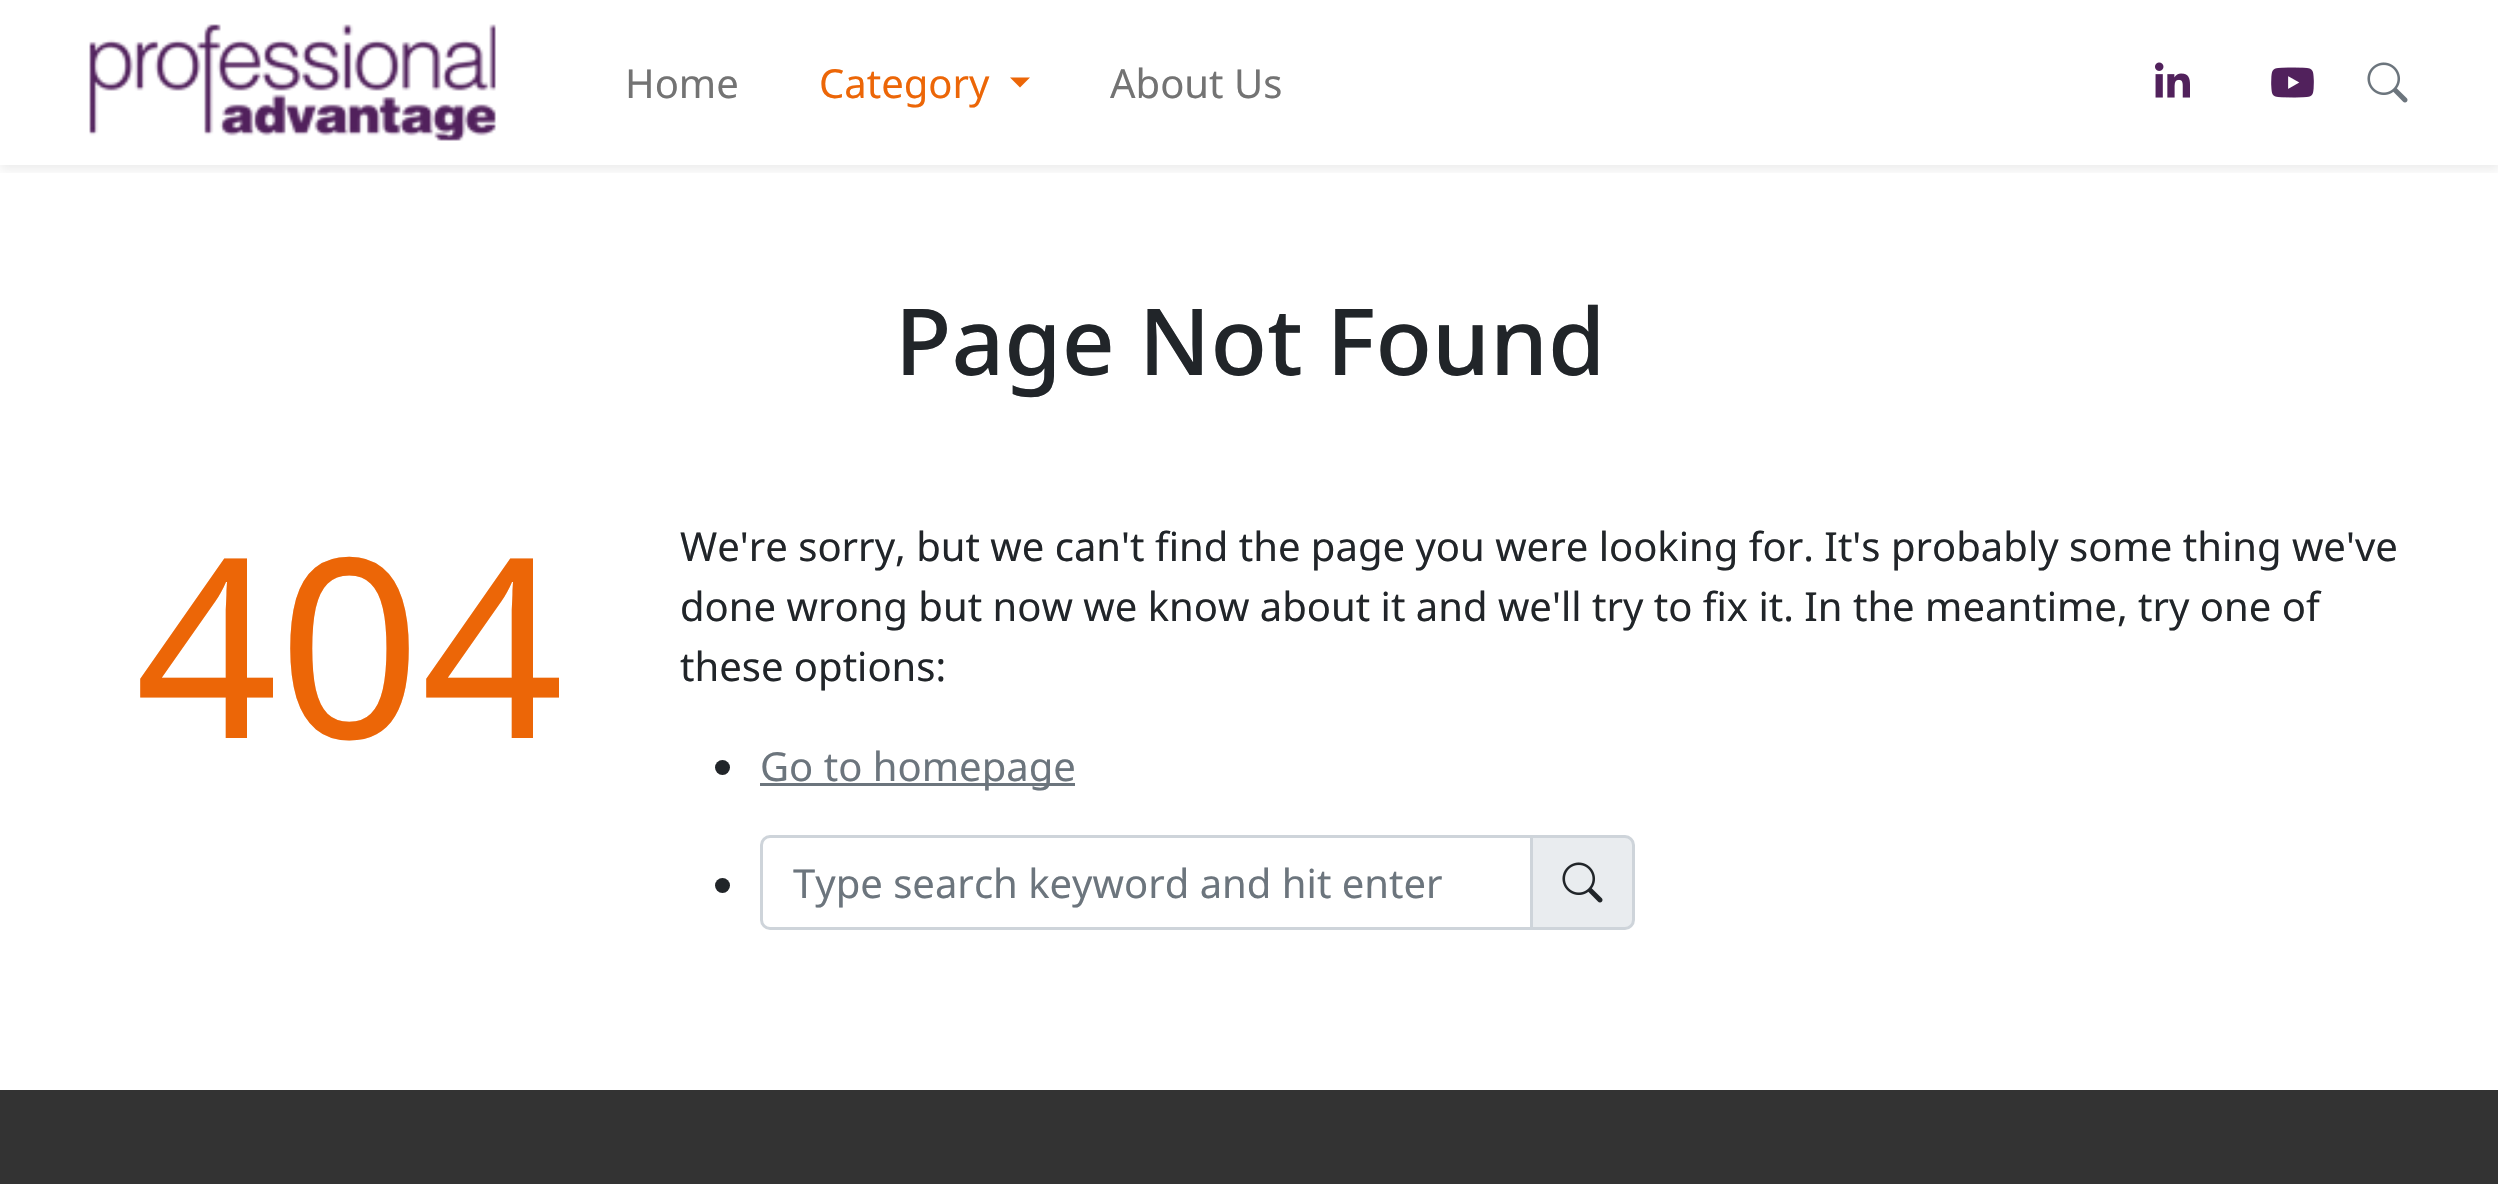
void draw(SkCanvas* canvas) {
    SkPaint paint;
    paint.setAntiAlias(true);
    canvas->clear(0xFFFFFFFF);
    canvas->save();
    canvas->clipRect(SkRect::MakeXYWH(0, 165, 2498, 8));
    paint.setColor(0x12000000);
    paint.setMaskFilter(SkMaskFilter::MakeBlur(kNormal_SkBlurStyle, 5));
    canvas->drawRect(SkRect::MakeXYWH(0, 5, 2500, 165), paint);
    paint.setMaskFilter(nullptr);
    canvas->restore();
    canvas->drawImageRect(SkImages::DeferredFromEncodedData(SkData::MakeFromFileName("img1.png")), SkRect::MakeXYWH(89, 24, 407, 117), SkSamplingOptions());
    SkFont font1(fontMgr->matchFamilyStyle("Noto Sans", SkFontStyle::Normal()), 40);
    font1.setSubpixel(true);
    paint.setColor(0xFF737373);
    canvas->drawString("Home", 625, 98, font1, paint);
    paint.setColor(0xFFEC6607);
    canvas->drawString("Category", 819, 98, font1, paint);
    canvas->drawPath(SkPathBuilder().moveTo(1010, 77.5f).lineTo(1030, 77.5f).lineTo(1020, 87.5f).close().detach(), paint);
    paint.setColor(0xFF737373);
    canvas->drawString("About Us", 1110, 98, font1, paint);
    canvas->drawImageRect(SkImages::DeferredFromEncodedData(SkData::MakeFromFileName("img2.png")), SkRect::MakeXYWH(2155, 62, 35, 36), SkSamplingOptions());
    canvas->drawImageRect(SkImages::DeferredFromEncodedData(SkData::MakeFromFileName("img3.png")), SkRect::MakeXYWH(2271, 67, 43, 31), SkSamplingOptions());
    canvas->drawImageRect(SkImages::DeferredFromEncodedData(SkData::MakeFromFileName("img4.png")), SkRect::MakeXYWH(2367, 62, 41, 41), SkSamplingOptions());
    SkFont font2(fontMgr->matchFamilyStyle("Noto Sans", SkFontStyle(500, SkFontStyle::kNormal_Width, SkFontStyle::kUpright_Slant)), 92.5f);
    font2.setSubpixel(true);
    paint.setColor(0xFF212529);
    canvas->drawString("Page Not Found", 895, 375, font2, paint);
    SkFont font3(fontMgr->matchFamilyStyle("Noto Sans", SkFontStyle::Normal()), 250);
    font3.setSubpixel(true);
    paint.setColor(0xFFEC6607);
    canvas->drawString("404", 135, 738, font3, paint);
    paint.setColor(0xFF212529);
    canvas->drawString("We're sorry, but we can't find the page you were looking for. It's probably some thing we've", 680, 561, font1, paint);
    canvas->drawString("done wrong but now we know about it and we'll try to fix it. In the meantime, try one of", 680, 621, font1, paint);
    canvas->drawString("these options:", 680, 681, font1, paint);
    canvas->drawCircle(722.5f, 767.5f, 7.5f, paint);
    paint.setColor(0xFF6C757D);
    canvas->drawRect(SkRect::MakeXYWH(760, 783, 315, 3), paint);
    canvas->drawString("Go to homepage", 760, 781, font1, paint);
    paint.setColor(0xFF212529);
    canvas->drawCircle(722.5f, 885.5f, 7.5f, paint);
    paint.setColor(0xFFE9ECEF);
    canvas->drawPath(SkPathBuilder().moveTo(1531.5f, 836.5f).lineTo(1625, 836.5f).cubicTo(1629.5f, 836.5f, 1633.5f, 840.5f, 1633.5f, 845).lineTo(1633.5f, 920).cubicTo(1633.5f, 924.5f, 1629.5f, 928.5f, 1625, 928.5f).lineTo(1531.5f, 928.5f).close().detach(), paint);
    paint.setStyle(SkPaint::kStroke_Style);
    paint.setStrokeWidth(3);
    paint.setColor(0xFFCED4DA);
    canvas->drawPath(SkPathBuilder().moveTo(1531.5f, 836.5f).lineTo(1625, 836.5f).cubicTo(1629.5f, 836.5f, 1633.5f, 840.5f, 1633.5f, 845).lineTo(1633.5f, 920).cubicTo(1633.5f, 924.5f, 1629.5f, 928.5f, 1625, 928.5f).lineTo(1531.5f, 928.5f).close().detach(), paint);
    canvas->drawPath(SkPathBuilder().moveTo(770, 836.5f).lineTo(1531.5f, 836.5f).lineTo(1531.5f, 928.5f).lineTo(770, 928.5f).cubicTo(765.5f, 928.5f, 761.5f, 924.5f, 761.5f, 920).lineTo(761.5f, 845).cubicTo(761.5f, 840.5f, 765.5f, 836.5f, 770, 836.5f).close().detach(), paint);
    canvas->save();
    canvas->clipRect(SkRect::MakeXYWH(793, 855, 707, 55));
    paint.setStyle(SkPaint::kFill_Style);
    paint.setColor(0xFF6C757D);
    canvas->drawString("Type search keyword and hit enter", 793, 898, font1, paint);
    canvas->restore();
    canvas->drawImageRect(SkImages::DeferredFromEncodedData(SkData::MakeFromFileName("img5.png")), SkRect::MakeXYWH(1562, 862, 41, 41), SkSamplingOptions());
    paint.setColor(0xFF333333);
    canvas->drawRect(SkRect::MakeXYWH(0, 1090, 2498, 94), paint);
}
